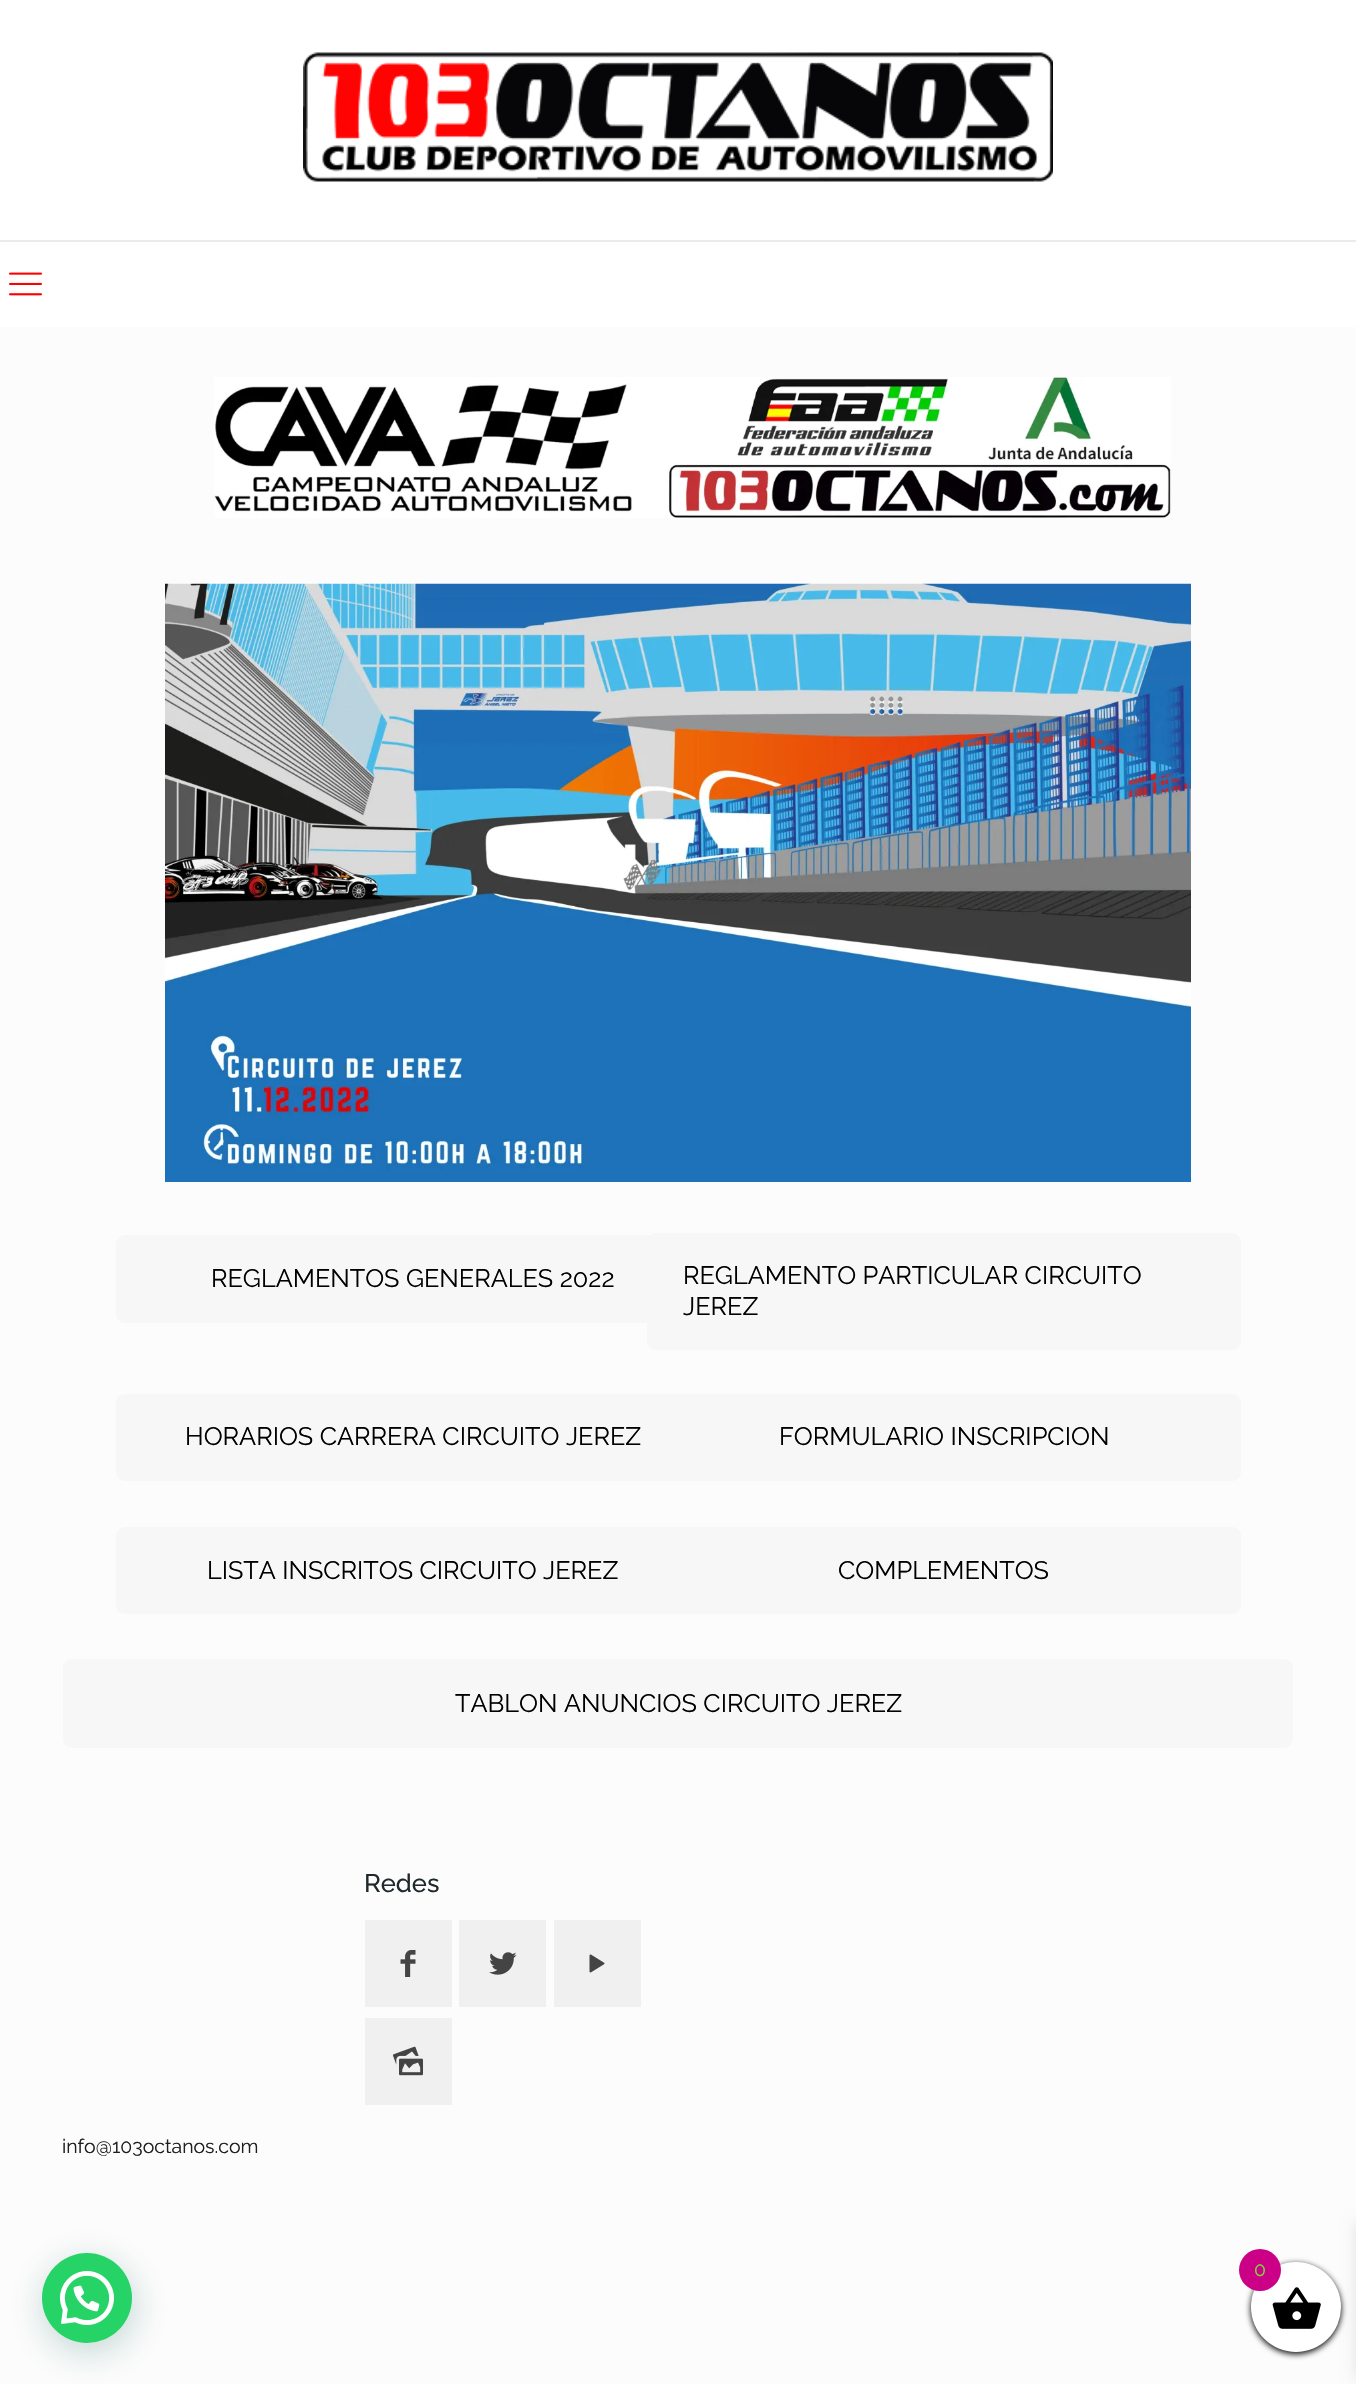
void draw(SkCanvas* canvas) {
    SkPaint paint;
    paint.setAntiAlias(true);
    canvas->clear(0xFFFCFCFC);
    paint.setColor(0xFFFFFFFF);
    canvas->drawRect(SkRect::MakeXYWH(0, 0, 1356, 327), paint);
    paint.setColor(0xFFEBEBEB);
    canvas->drawRect(SkRect::MakeXYWH(0, 240, 1356, 2), paint);
    canvas->drawImageRect(SkImages::DeferredFromEncodedData(SkData::MakeFromFileName("img1.png")), SkRect::MakeXYWH(303, 52, 750, 130), SkSamplingOptions());
    canvas->drawImageRect(SkImages::DeferredFromEncodedData(SkData::MakeFromFileName("img2.png")), SkRect::MakeXYWH(9, 272, 33, 24), SkSamplingOptions());
    canvas->drawImageRect(SkImages::DeferredFromEncodedData(SkData::MakeFromFileName("img3.png")), SkRect::MakeXYWH(214, 377, 957, 141), SkSamplingOptions());
    canvas->drawImageRect(SkImages::DeferredFromEncodedData(SkData::MakeFromFileName("img4.png")), SkRect::MakeXYWH(165, 583, 1026, 599), SkSamplingOptions());
    paint.setColor(0xFFF7F7F7);
    canvas->drawRoundRect(SkRect::MakeXYWH(116, 1235, 594, 88), 9, 9, paint);
    SkFont font1(fontMgr->matchFamilyStyle("Raleway", SkFontStyle::Normal()), 25.25f);
    font1.setSubpixel(true);
    paint.setColor(0xFF000000);
    canvas->drawString("REGLAMENTOS GENERALES 2022", 211, 1287, font1, paint);
    paint.setColor(0xFFF7F7F7);
    canvas->drawRoundRect(SkRect::MakeXYWH(647, 1233, 594, 117), 9, 9, paint);
    paint.setColor(0xFF000000);
    canvas->drawString("REGLAMENTO PARTICULAR CIRCUITO", 683, 1284, font1, paint);
    canvas->drawString("JEREZ", 683, 1315, font1, paint);
    paint.setColor(0xFFF7F7F7);
    canvas->drawRoundRect(SkRect::MakeXYWH(116, 1394, 594, 87), 9, 9, paint);
    paint.setColor(0xFF000000);
    canvas->drawString("HORARIOS CARRERA CIRCUITO JEREZ", 185, 1445, font1, paint);
    paint.setColor(0xFFF7F7F7);
    canvas->drawRoundRect(SkRect::MakeXYWH(647, 1394, 594, 87), 9, 9, paint);
    paint.setColor(0xFF000000);
    canvas->drawString("FORMULARIO INSCRIPCION", 779, 1445, font1, paint);
    paint.setColor(0xFFF7F7F7);
    canvas->drawRoundRect(SkRect::MakeXYWH(116, 1527, 594, 87), 9, 9, paint);
    paint.setColor(0xFF000000);
    canvas->drawString("LISTA INSCRITOS CIRCUITO JEREZ", 207, 1579, font1, paint);
    paint.setColor(0xFFF7F7F7);
    canvas->drawRoundRect(SkRect::MakeXYWH(647, 1527, 594, 87), 9, 9, paint);
    paint.setColor(0xFF000000);
    canvas->drawString("COMPLEMENTOS", 838, 1579, font1, paint);
    paint.setColor(0xFFF7F7F7);
    canvas->drawRoundRect(SkRect::MakeXYWH(63, 1659, 1230, 89), 9, 9, paint);
    paint.setColor(0xFF000000);
    canvas->drawString("TABLON ANUNCIOS CIRCUITO JEREZ", 455, 1712, font1, paint);
    SkFont font2(fontMgr->matchFamilyStyle("Raleway", SkFontStyle(500, SkFontStyle::kNormal_Width, SkFontStyle::kUpright_Slant)), 25.5f);
    font2.setSubpixel(true);
    paint.setColor(0xFF20292C);
    canvas->drawString("Redes", 364, 1892, font2, paint);
    paint.setColor(0xFFF0F0F0);
    canvas->drawRect(SkRect::MakeXYWH(365, 1920, 87, 87), paint);
    canvas->drawImageRect(SkImages::DeferredFromEncodedData(SkData::MakeFromFileName("img5.png")), SkRect::MakeXYWH(400, 1950, 16, 27), SkSamplingOptions());
    canvas->drawRect(SkRect::MakeXYWH(459, 1920, 87, 87), paint);
    canvas->drawImageRect(SkImages::DeferredFromEncodedData(SkData::MakeFromFileName("img6.png")), SkRect::MakeXYWH(489, 1952, 28, 23), SkSamplingOptions());
    canvas->drawRect(SkRect::MakeXYWH(554, 1920, 87, 87), paint);
    canvas->drawImageRect(SkImages::DeferredFromEncodedData(SkData::MakeFromFileName("img7.png")), SkRect::MakeXYWH(589, 1954, 16, 19), SkSamplingOptions());
    canvas->drawRect(SkRect::MakeXYWH(365, 2018, 87, 87), paint);
    canvas->drawImageRect(SkImages::DeferredFromEncodedData(SkData::MakeFromFileName("img8.png")), SkRect::MakeXYWH(393, 2046, 30, 30), SkSamplingOptions());
    SkFont font3(fontMgr->matchFamilyStyle("Raleway", SkFontStyle::Normal()), 19.5f);
    font3.setSubpixel(true);
    paint.setColor(0xFF1E1E1E);
    canvas->drawString("info@103octanos.com", 62, 2153, font3, paint);
    paint.setColor(0x3D075E54);
    paint.setMaskFilter(SkMaskFilter::MakeBlur(kNormal_SkBlurStyle, 18));
    canvas->drawRoundRect(SkRect::MakeXYWH(44, 2262, 90, 90), 45, 45, paint);
    paint.setMaskFilter(nullptr);
    paint.setColor(0xFF25D366);
    canvas->drawCircle(87, 2298, 45, paint);
    canvas->drawImageRect(SkImages::DeferredFromEncodedData(SkData::MakeFromFileName("img9.png")), SkRect::MakeXYWH(60, 2271, 54, 54), SkSamplingOptions());
    paint.setColor(0xFF000000);
    paint.setMaskFilter(SkMaskFilter::MakeBlur(kNormal_SkBlurStyle, 3));
    canvas->drawRoundRect(SkRect::MakeXYWH(1251, 2264, 90, 90), 45, 45, paint);
    paint.setMaskFilter(nullptr);
    paint.setColor(0x1A000000);
    paint.setMaskFilter(SkMaskFilter::MakeBlur(kNormal_SkBlurStyle, 7.5f));
    canvas->drawRect(SkRect::MakeXYWH(1356, 2223, 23, 155), paint);
    paint.setMaskFilter(nullptr);
    paint.setColor(0xFFFFFFFF);
    canvas->drawCircle(1296, 2307, 45, paint);
    canvas->drawImageRect(SkImages::DeferredFromEncodedData(SkData::MakeFromFileName("img10.png")), SkRect::MakeXYWH(1272, 2287, 49, 42), SkSamplingOptions());
    paint.setColor(0xFFCC0086);
    canvas->drawCircle(1260, 2270, 21, paint);
    paint.setColor(0xFF81D742);
    canvas->drawString("0", 1254, 2276, font3, paint);
}
